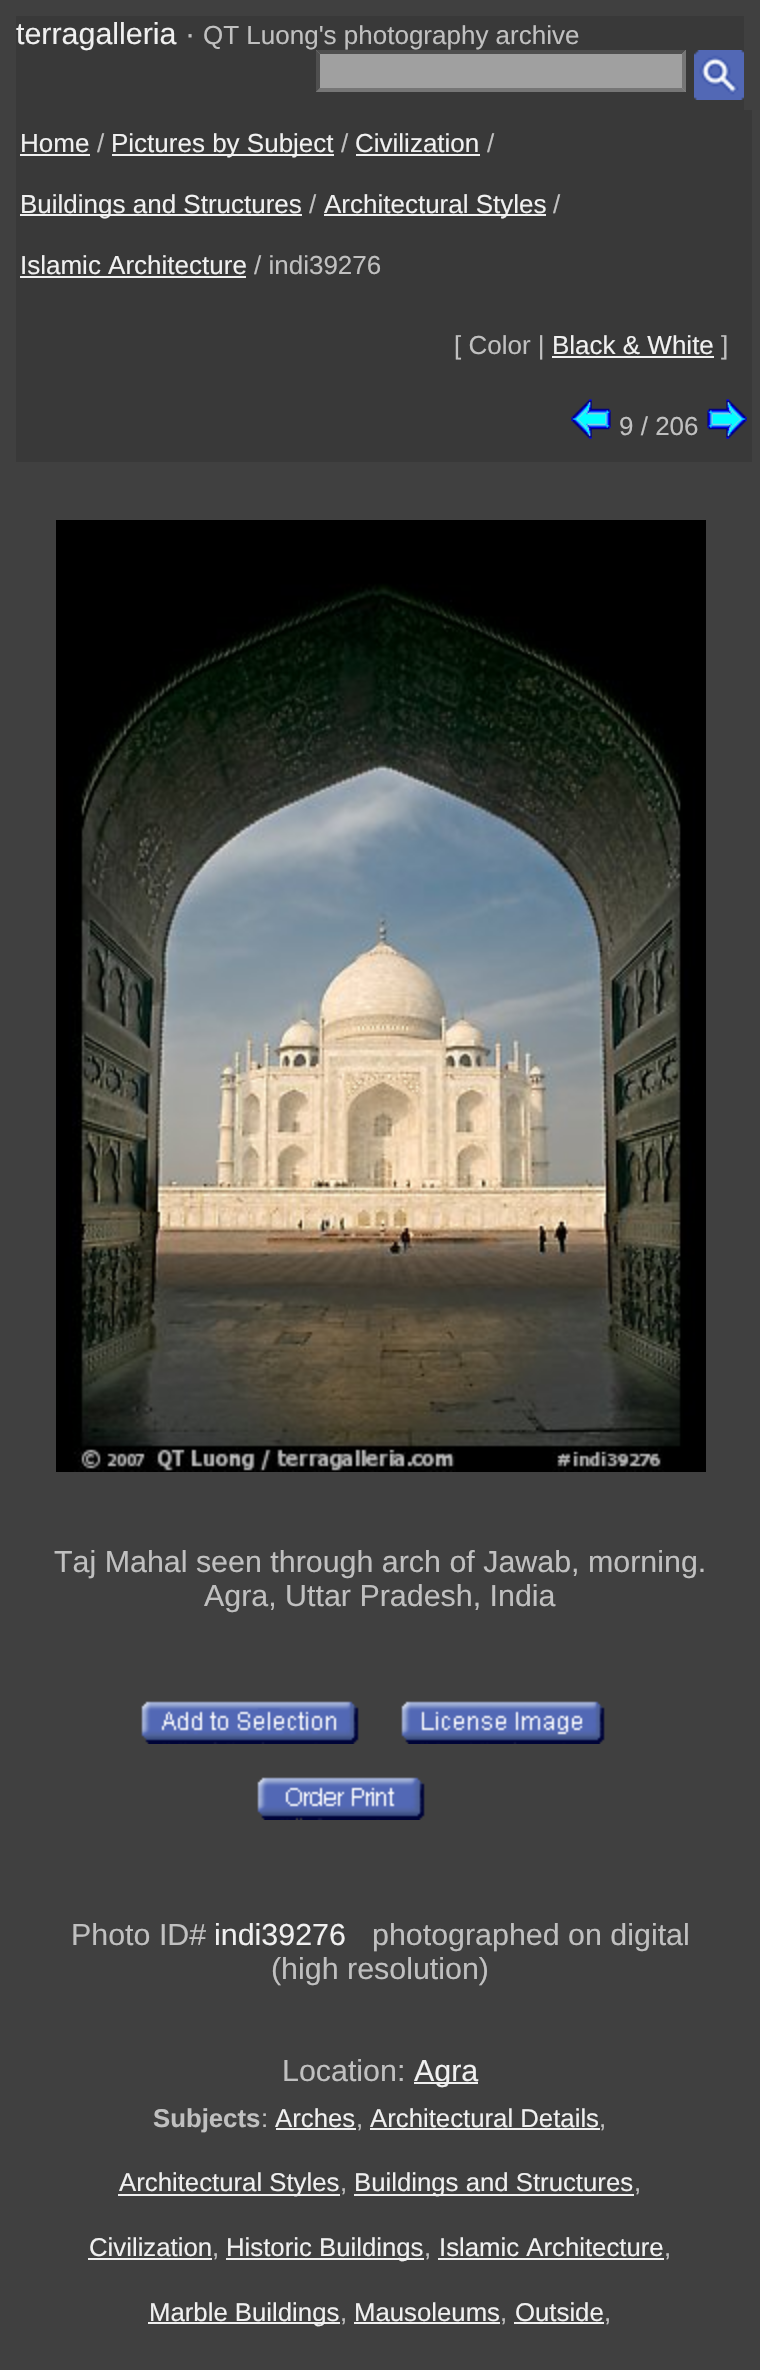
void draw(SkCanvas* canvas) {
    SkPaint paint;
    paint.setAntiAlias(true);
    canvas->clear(0xFF404040);
    paint.setColor(0xFF393939);
    canvas->drawRect(SkRect::MakeXYWH(16, 16, 728, 94), paint);
    SkFont font1(fontMgr->matchFamilyStyle("Liberation Sans", SkFontStyle::Normal()), 30.4f);
    font1.setSubpixel(true);
    paint.setColor(0xFFF0F0F0);
    canvas->drawString("terragalleria", 16, 44, font1, paint);
    paint.setColor(0xFFC0C0C0);
    canvas->drawString("·", 185, 44, font1, paint);
    SkFont font2(fontMgr->matchFamilyStyle("Liberation Sans", SkFontStyle::Normal()), 26);
    font2.setSubpixel(true);
    canvas->drawString("QT Luong's photography archive", 203, 44, font2, paint);
    paint.setColor(0xFFA0A0A0);
    canvas->drawRect(SkRect::MakeXYWH(316, 50, 370, 42), paint);
    paint.setColor(0xFF4F4F4F);
    canvas->drawPath(SkPathBuilder().moveTo(316, 50).lineTo(686, 50).lineTo(682, 54).lineTo(320, 54).close().detach(), paint);
    paint.setColor(0xFF767676);
    canvas->drawPath(SkPathBuilder().moveTo(686, 50).lineTo(686, 92).lineTo(682, 88).lineTo(682, 54).close().detach(), paint);
    canvas->drawPath(SkPathBuilder().moveTo(686, 92).lineTo(316, 92).lineTo(320, 88).lineTo(682, 88).close().detach(), paint);
    paint.setColor(0xFF4F4F4F);
    canvas->drawPath(SkPathBuilder().moveTo(316, 92).lineTo(316, 50).lineTo(320, 54).lineTo(320, 88).close().detach(), paint);
    canvas->drawImageRect(SkImages::DeferredFromEncodedData(SkData::MakeFromFileName("img1.png")), SkRect::MakeXYWH(694, 50, 50, 50), SkSamplingOptions());
    paint.setColor(0xFF393939);
    canvas->drawRect(SkRect::MakeXYWH(16, 110, 736, 352), paint);
    paint.setColor(0xFFF0F0F0);
    canvas->drawString("Home", 20, 152, font2, paint);
    canvas->drawRect(SkRect::MakeXYWH(20, 154, 70, 2), paint);
    paint.setColor(0xFFC0C0C0);
    canvas->drawString("/", 97, 152, font2, paint);
    paint.setColor(0xFFF0F0F0);
    canvas->drawRect(SkRect::MakeXYWH(112, 154, 222, 2), paint);
    canvas->drawString("Pictures by Subject", 111, 152, font2, paint);
    paint.setColor(0xFFC0C0C0);
    canvas->drawString("/", 341, 152, font2, paint);
    paint.setColor(0xFFF0F0F0);
    canvas->drawString("Civilization", 355, 152, font2, paint);
    canvas->drawRect(SkRect::MakeXYWH(356, 154, 124, 2), paint);
    paint.setColor(0xFFC0C0C0);
    canvas->drawString("/", 487, 152, font2, paint);
    paint.setColor(0xFFF0F0F0);
    canvas->drawRect(SkRect::MakeXYWH(20, 214, 282, 2), paint);
    canvas->drawString("Buildings and Structures", 20, 213, font2, paint);
    paint.setColor(0xFFC0C0C0);
    canvas->drawString("/", 309, 213, font2, paint);
    paint.setColor(0xFFF0F0F0);
    canvas->drawRect(SkRect::MakeXYWH(324, 214, 222, 2), paint);
    canvas->drawString("Architectural Styles", 324, 213, font2, paint);
    paint.setColor(0xFFC0C0C0);
    canvas->drawString("/", 553, 213, font2, paint);
    paint.setColor(0xFFF0F0F0);
    canvas->drawString("Islamic Architecture", 20, 274, font2, paint);
    canvas->drawRect(SkRect::MakeXYWH(20, 276, 226, 2), paint);
    paint.setColor(0xFFC0C0C0);
    canvas->drawString("/ indi39276", 254, 274, font2, paint);
    canvas->drawString("[ Color |", 454, 354, font2, paint);
    paint.setColor(0xFFF0F0F0);
    canvas->drawString("Black & White", 552, 354, font2, paint);
    canvas->drawRect(SkRect::MakeXYWH(552, 356, 162, 2), paint);
    paint.setColor(0xFFC0C0C0);
    canvas->drawString("]", 721, 354, font2, paint);
    canvas->drawImageRect(SkImages::DeferredFromEncodedData(SkData::MakeFromFileName("img2.png")), SkRect::MakeXYWH(571, 399, 40, 40), SkSamplingOptions());
    canvas->drawString("9 / 206", 619, 435, font2, paint);
    canvas->drawImageRect(SkImages::DeferredFromEncodedData(SkData::MakeFromFileName("img3.png")), SkRect::MakeXYWH(707, 399, 40, 40), SkSamplingOptions());
    canvas->drawImageRect(SkImages::DeferredFromEncodedData(SkData::MakeFromFileName("img4.png")), SkRect::MakeXYWH(56, 520, 650, 952), SkSamplingOptions());
    canvas->drawString("Taj Mahal seen through arch of Jawab, morning.", 54, 1572, font1, paint);
    canvas->drawString("Agra, Uttar Pradesh, India", 204, 1606, font1, paint);
    canvas->drawImageRect(SkImages::DeferredFromEncodedData(SkData::MakeFromFileName("img5.png")), SkRect::MakeXYWH(141, 1701, 218, 43), SkSamplingOptions());
    canvas->drawImageRect(SkImages::DeferredFromEncodedData(SkData::MakeFromFileName("img6.png")), SkRect::MakeXYWH(401, 1701, 204, 43), SkSamplingOptions());
    canvas->drawImageRect(SkImages::DeferredFromEncodedData(SkData::MakeFromFileName("img7.png")), SkRect::MakeXYWH(257, 1777, 168, 43), SkSamplingOptions());
    canvas->drawString("Photo ID#", 71, 1945, font1, paint);
    paint.setColor(0xFFF0F0F0);
    canvas->drawString("indi39276", 214, 1945, font1, paint);
    paint.setColor(0xFFC0C0C0);
    canvas->drawString("photographed on digital", 372, 1945, font1, paint);
    canvas->drawString("(high resolution)", 271, 1979, font1, paint);
    canvas->drawString("Location:", 282, 2081, font1, paint);
    paint.setColor(0xFFF0F0F0);
    canvas->drawRect(SkRect::MakeXYWH(414, 2082, 64, 2), paint);
    canvas->drawString("Agra", 414, 2081, font1, paint);
    SkFont font3(fontMgr->matchFamilyStyle("Liberation Sans", SkFontStyle::Bold()), 25.75f);
    font3.setSubpixel(true);
    paint.setColor(0xFFC0C0C0);
    canvas->drawString("Subjects", 153, 2127, font3, paint);
    SkFont font4(fontMgr->matchFamilyStyle("Liberation Sans", SkFontStyle::Normal()), 25.75f);
    font4.setSubpixel(true);
    canvas->drawString(":", 261, 2127, font4, paint);
    paint.setColor(0xFFF0F0F0);
    canvas->drawString("Arches", 275, 2127, font4, paint);
    canvas->drawRect(SkRect::MakeXYWH(276, 2128, 80, 2), paint);
    paint.setColor(0xFFC0C0C0);
    canvas->drawString(",", 356, 2127, font4, paint);
    paint.setColor(0xFFF0F0F0);
    canvas->drawString("Architectural Details", 370, 2127, font4, paint);
    canvas->drawRect(SkRect::MakeXYWH(370, 2128, 230, 2), paint);
    paint.setColor(0xFFC0C0C0);
    canvas->drawString(",", 599, 2127, font4, paint);
    paint.setColor(0xFFF0F0F0);
    canvas->drawRect(SkRect::MakeXYWH(118, 2194, 222, 2), paint);
    canvas->drawString("Architectural Styles", 119, 2191, font4, paint);
    paint.setColor(0xFFC0C0C0);
    canvas->drawString(",", 340, 2191, font4, paint);
    paint.setColor(0xFFF0F0F0);
    canvas->drawRect(SkRect::MakeXYWH(354, 2194, 280, 2), paint);
    canvas->drawString("Buildings and Structures", 354, 2191, font4, paint);
    paint.setColor(0xFFC0C0C0);
    canvas->drawString(",", 634, 2191, font4, paint);
    paint.setColor(0xFFF0F0F0);
    canvas->drawString("Civilization", 89, 2256, font4, paint);
    canvas->drawRect(SkRect::MakeXYWH(88, 2258, 124, 2), paint);
    paint.setColor(0xFFC0C0C0);
    canvas->drawString(",", 212, 2256, font4, paint);
    paint.setColor(0xFFF0F0F0);
    canvas->drawRect(SkRect::MakeXYWH(226, 2258, 198, 2), paint);
    canvas->drawString("Historic Buildings", 226, 2256, font4, paint);
    paint.setColor(0xFFC0C0C0);
    canvas->drawString(",", 424, 2256, font4, paint);
    paint.setColor(0xFFF0F0F0);
    canvas->drawString("Islamic Architecture", 439, 2256, font4, paint);
    canvas->drawRect(SkRect::MakeXYWH(438, 2258, 226, 2), paint);
    paint.setColor(0xFFC0C0C0);
    canvas->drawString(",", 664, 2256, font4, paint);
    paint.setColor(0xFFF0F0F0);
    canvas->drawRect(SkRect::MakeXYWH(148, 2322, 192, 2), paint);
    canvas->drawString("Marble Buildings", 149, 2321, font4, paint);
    paint.setColor(0xFFC0C0C0);
    canvas->drawString(",", 340, 2321, font4, paint);
    paint.setColor(0xFFF0F0F0);
    canvas->drawString("Mausoleums", 354, 2321, font4, paint);
    canvas->drawRect(SkRect::MakeXYWH(354, 2322, 146, 2), paint);
    paint.setColor(0xFFC0C0C0);
    canvas->drawString(",", 500, 2321, font4, paint);
    paint.setColor(0xFFF0F0F0);
    canvas->drawString("Outside", 515, 2321, font4, paint);
    canvas->drawRect(SkRect::MakeXYWH(514, 2322, 90, 2), paint);
    paint.setColor(0xFFC0C0C0);
    canvas->drawString(",", 604, 2321, font4, paint);
}
